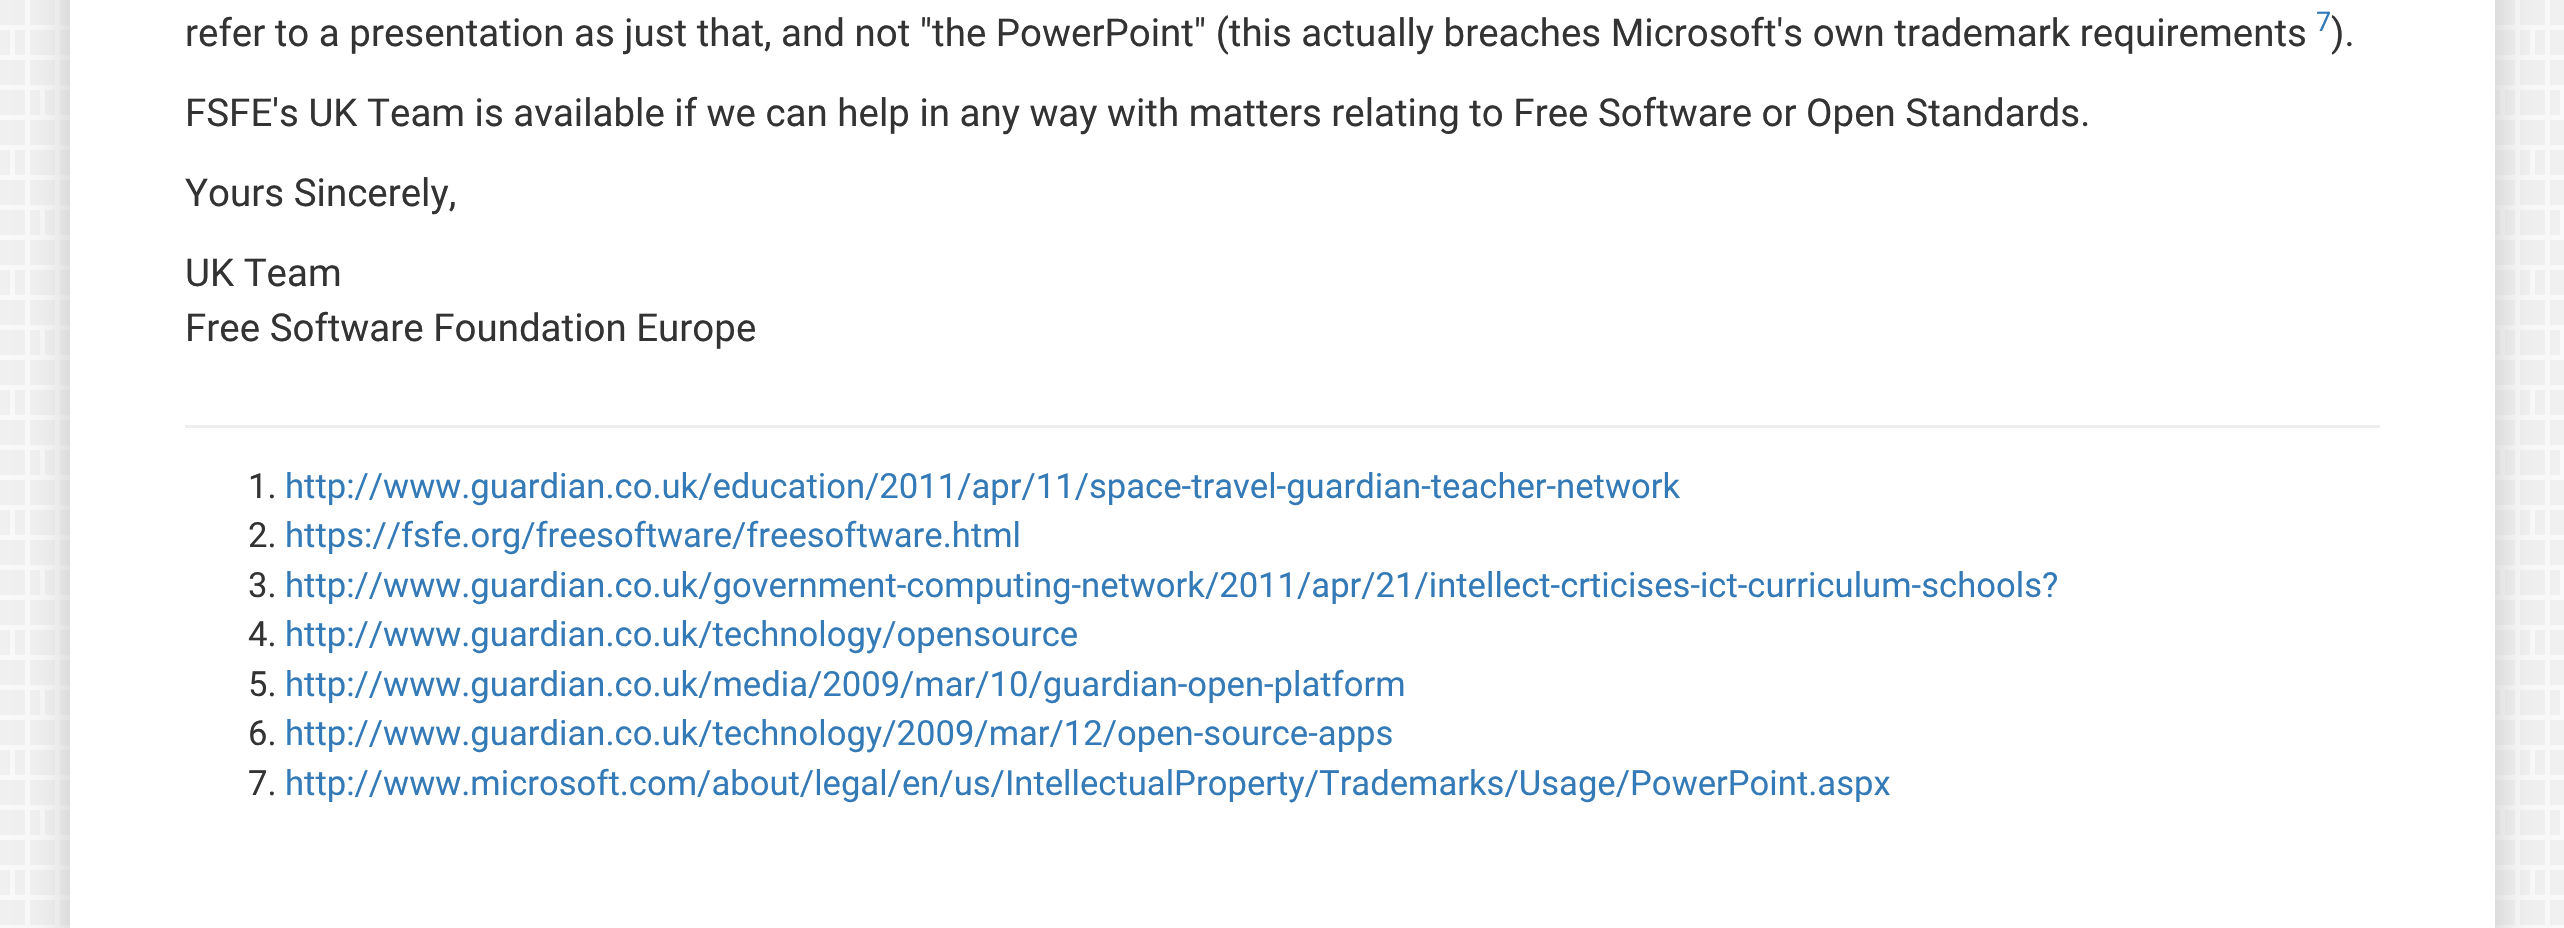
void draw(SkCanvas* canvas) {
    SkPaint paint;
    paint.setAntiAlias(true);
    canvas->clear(0xFFF9F9F9);
    canvas->drawImageRect(SkImages::DeferredFromEncodedData(SkData::MakeFromFileName("img1.png")), SkRect::MakeXYWH(0, 0, 2564, 925), SkSamplingOptions());
    paint.setColor(0xFFC8C8C8);
    paint.setMaskFilter(SkMaskFilter::MakeBlur(kNormal_SkBlurStyle, 19));
    canvas->drawRect(SkRect::MakeXYWH(70, -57, 2425, 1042), paint);
    paint.setMaskFilter(nullptr);
    paint.setColor(0xFFFFFFFF);
    canvas->drawRect(SkRect::MakeXYWH(70, 0, 2425, 928), paint);
    SkFont font1(fontMgr->matchFamilyStyle("Roboto", SkFontStyle::Normal()), 38.5f);
    font1.setSubpixel(true);
    paint.setColor(0xFF333333);
    canvas->drawString("refer to a presentation as just that, and not \"the PowerPoint\" (this actually breaches Microsoft's own trademark requirements", 185, 46, font1, paint);
    SkFont font2(fontMgr->matchFamilyStyle("Roboto", SkFontStyle::Normal()), 27);
    font2.setSubpixel(true);
    paint.setColor(0xFF337AB7);
    canvas->drawString("7", 2316, 31, font2, paint);
    paint.setColor(0xFF333333);
    canvas->drawString(").", 2331, 46, font1, paint);
    canvas->drawString("FSFE's UK Team is available if we can help in any way with matters relating to Free Software or Open Standards.", 185, 126, font1, paint);
    canvas->drawString("Yours Sincerely,", 185, 206, font1, paint);
    canvas->drawString("UK Team", 185, 286, font1, paint);
    canvas->drawString("Free Software Foundation Europe", 185, 341, font1, paint);
    paint.setColor(0xFFEEEEEE);
    canvas->drawRect(SkRect::MakeXYWH(185, 425, 2195, 3), paint);
    SkFont font3(fontMgr->matchFamilyStyle("Roboto", SkFontStyle::Normal()), 34.65f);
    font3.setSubpixel(true);
    paint.setColor(0xFF333333);
    canvas->drawString("1.", 248, 498, font3, paint);
    paint.setColor(0xFF337AB7);
    canvas->drawString("http://www.guardian.co.uk/education/2011/apr/11/space-travel-guardian-teacher-network", 285, 498, font3, paint);
    paint.setColor(0xFF333333);
    canvas->drawString("2.", 248, 547, font3, paint);
    paint.setColor(0xFF337AB7);
    canvas->drawString("https://fsfe.org/freesoftware/freesoftware.html", 285, 547, font3, paint);
    paint.setColor(0xFF333333);
    canvas->drawString("3.", 248, 597, font3, paint);
    paint.setColor(0xFF337AB7);
    canvas->drawString("http://www.guardian.co.uk/government-computing-network/2011/apr/21/intellect-crticises-ict-curriculum-schools?", 285, 597, font3, paint);
    paint.setColor(0xFF333333);
    canvas->drawString("4.", 248, 646, font3, paint);
    paint.setColor(0xFF337AB7);
    canvas->drawString("http://www.guardian.co.uk/technology/opensource", 285, 646, font3, paint);
    paint.setColor(0xFF333333);
    canvas->drawString("5.", 248, 696, font3, paint);
    paint.setColor(0xFF337AB7);
    canvas->drawString("http://www.guardian.co.uk/media/2009/mar/10/guardian-open-platform", 285, 696, font3, paint);
    paint.setColor(0xFF333333);
    canvas->drawString("6.", 248, 745, font3, paint);
    paint.setColor(0xFF337AB7);
    canvas->drawString("http://www.guardian.co.uk/technology/2009/mar/12/open-source-apps", 285, 745, font3, paint);
    paint.setColor(0xFF333333);
    canvas->drawString("7.", 248, 795, font3, paint);
    paint.setColor(0xFF337AB7);
    canvas->drawString("http://www.microsoft.com/about/legal/en/us/IntellectualProperty/Trademarks/Usage/PowerPoint.aspx", 285, 795, font3, paint);
}
